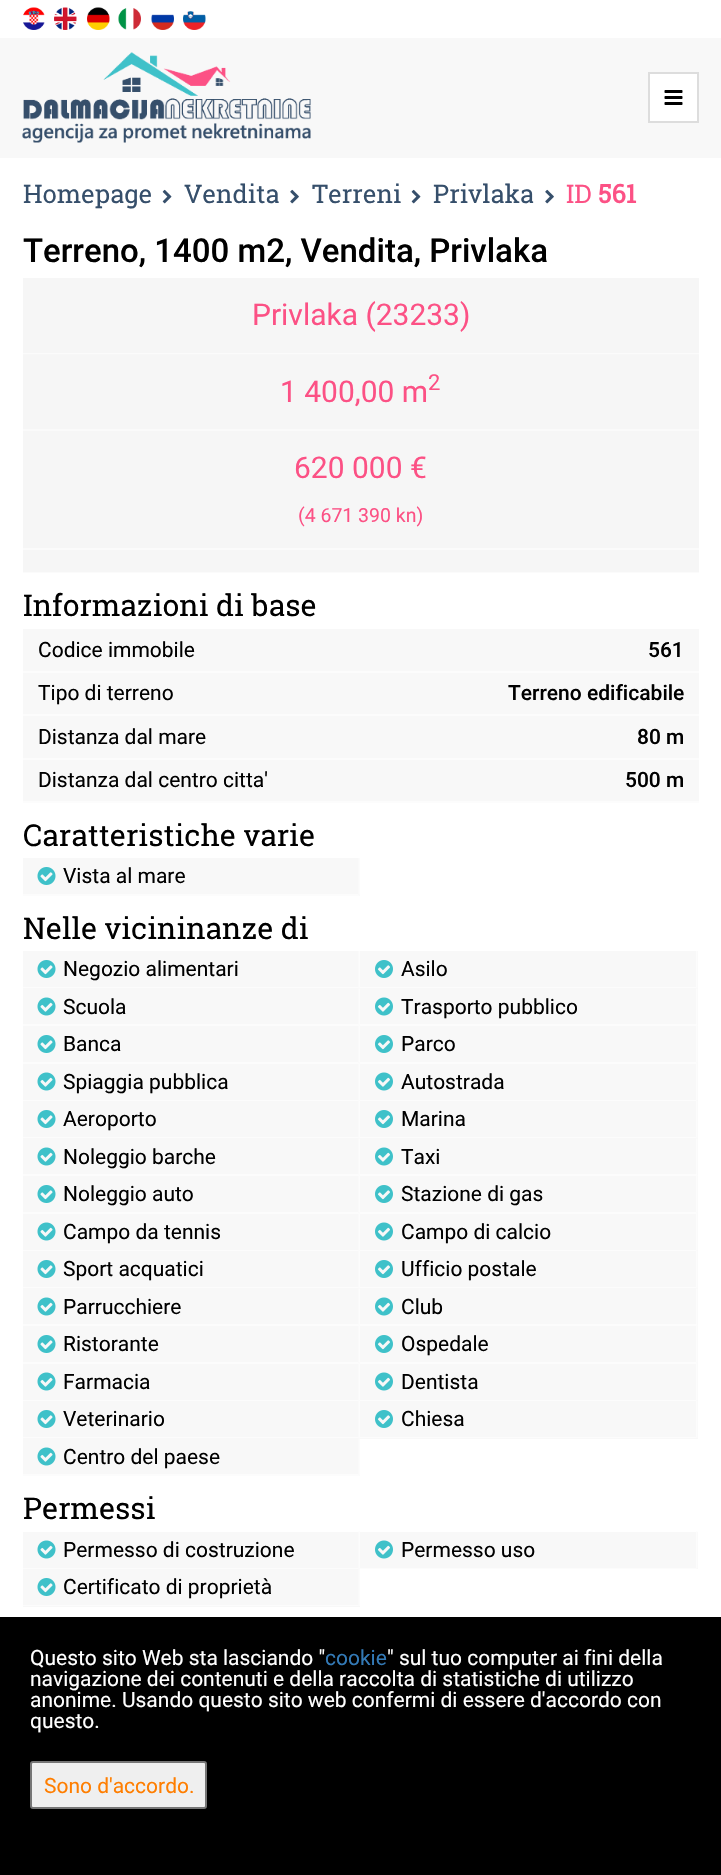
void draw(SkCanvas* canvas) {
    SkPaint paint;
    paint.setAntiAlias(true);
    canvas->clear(0xFFFFFFFF);
    canvas->drawImageRect(SkImages::DeferredFromEncodedData(SkData::MakeFromFileName("img1.png")), SkRect::MakeXYWH(23, 7, 22, 23), SkSamplingOptions());
    canvas->drawImageRect(SkImages::DeferredFromEncodedData(SkData::MakeFromFileName("img2.png")), SkRect::MakeXYWH(54, 7, 23, 23), SkSamplingOptions());
    canvas->drawImageRect(SkImages::DeferredFromEncodedData(SkData::MakeFromFileName("img3.png")), SkRect::MakeXYWH(87, 7, 23, 23), SkSamplingOptions());
    canvas->drawImageRect(SkImages::DeferredFromEncodedData(SkData::MakeFromFileName("img4.png")), SkRect::MakeXYWH(118, 8, 23, 22), SkSamplingOptions());
    canvas->drawImageRect(SkImages::DeferredFromEncodedData(SkData::MakeFromFileName("img5.png")), SkRect::MakeXYWH(151, 14, 23, 16), SkSamplingOptions());
    canvas->drawImageRect(SkImages::DeferredFromEncodedData(SkData::MakeFromFileName("img6.png")), SkRect::MakeXYWH(183, 11, 23, 19), SkSamplingOptions());
    paint.setColor(0xFFF8F8F8);
    canvas->drawRect(SkRect::MakeXYWH(0, 38, 721, 120), paint);
    canvas->drawImageRect(SkImages::DeferredFromEncodedData(SkData::MakeFromFileName("img7.png")), SkRect::MakeXYWH(22, 52, 289, 91), SkSamplingOptions());
    paint.setColor(0xFFFFFFFF);
    canvas->drawRect(SkRect::MakeXYWH(649, 73, 49, 49), paint);
    paint.setStyle(SkPaint::kStroke_Style);
    paint.setStrokeWidth(2);
    paint.setColor(0xFFDDDDDD);
    canvas->drawRect(SkRect::MakeXYWH(649, 73, 49, 49), paint);
    canvas->drawImageRect(SkImages::DeferredFromEncodedData(SkData::MakeFromFileName("img8.png")), SkRect::MakeXYWH(664, 90, 19, 15), SkSamplingOptions());
    SkFont font1(fontMgr->matchFamilyStyle("Roboto Slab", SkFontStyle::Normal()), 25.5f);
    font1.setSubpixel(true);
    paint.setStyle(SkPaint::kFill_Style);
    paint.setColor(0xFF364F6B);
    canvas->drawString("Homepage", 23, 203, font1, paint);
    canvas->drawImageRect(SkImages::DeferredFromEncodedData(SkData::MakeFromFileName("img9.png")), SkRect::MakeXYWH(162, 189, 10, 15), SkSamplingOptions());
    canvas->drawString("Vendita", 184, 203, font1, paint);
    canvas->drawImageRect(SkImages::DeferredFromEncodedData(SkData::MakeFromFileName("img10.png")), SkRect::MakeXYWH(290, 189, 9, 15), SkSamplingOptions());
    canvas->drawString("Terreni", 312, 203, font1, paint);
    canvas->drawImageRect(SkImages::DeferredFromEncodedData(SkData::MakeFromFileName("img9.png")), SkRect::MakeXYWH(411, 189, 10, 15), SkSamplingOptions());
    canvas->drawString("Privlaka", 433, 203, font1, paint);
    canvas->drawImageRect(SkImages::DeferredFromEncodedData(SkData::MakeFromFileName("img10.png")), SkRect::MakeXYWH(545, 189, 9, 15), SkSamplingOptions());
    paint.setColor(0xFFFC5185);
    canvas->drawString("ID", 566, 203, font1, paint);
    SkFont font2(fontMgr->matchFamilyStyle("Roboto Slab", SkFontStyle::Bold()), 25.5f);
    font2.setSubpixel(true);
    canvas->drawString("561", 598, 203, font2, paint);
    SkFont font3(fontMgr->matchFamilyStyle("Roboto", SkFontStyle(500, SkFontStyle::kNormal_Width, SkFontStyle::kUpright_Slant)), 33);
    font3.setSubpixel(true);
    paint.setColor(0xFF000000);
    canvas->drawString("Terreno, 1400 m2, Vendita, Privlaka", 23, 262, font3, paint);
    paint.setColor(0xFFF6F6F6);
    canvas->drawRect(SkRect::MakeXYWH(23, 355, 676, 74), paint);
    canvas->drawRect(SkRect::MakeXYWH(23, 278, 676, 75), paint);
    paint.setColor(0xFFFBFBFB);
    canvas->drawRect(SkRect::MakeXYWH(23, 353, 676, 1), paint);
    paint.setColor(0xFFF7F7F7);
    canvas->drawRect(SkRect::MakeXYWH(23, 354, 676, 1), paint);
    SkFont font4(fontMgr->matchFamilyStyle("Roboto", SkFontStyle::Normal()), 30);
    font4.setSubpixel(true);
    paint.setColor(0xFFFC5185);
    canvas->drawString("Privlaka (23233)", 252, 325, font4, paint);
    paint.setColor(0xFFFAFAFA);
    canvas->drawRect(SkRect::MakeXYWH(23, 429, 676, 2), paint);
    paint.setColor(0xFFFC5185);
    canvas->drawString("1 400,00 m", 280, 402, font4, paint);
    SkFont font5(fontMgr->matchFamilyStyle("Roboto", SkFontStyle::Normal()), 22);
    font5.setSubpixel(true);
    canvas->drawString("2", 428, 390, font5, paint);
    paint.setColor(0xFFF6F6F6);
    canvas->drawRect(SkRect::MakeXYWH(23, 431, 676, 141), paint);
    paint.setColor(0xFFFBFBFB);
    canvas->drawRect(SkRect::MakeXYWH(23, 572, 676, 1), paint);
    paint.setColor(0xFFFC5185);
    canvas->drawString("620 000 €", 294, 478, font4, paint);
    paint.setColor(0xFFFBFBFB);
    canvas->drawRect(SkRect::MakeXYWH(23, 548, 676, 2), paint);
    SkFont font6(fontMgr->matchFamilyStyle("Roboto", SkFontStyle::Normal()), 19.5f);
    font6.setSubpixel(true);
    paint.setColor(0xFFFC5185);
    canvas->drawString("(4 671 390 kn)", 298, 522, font6, paint);
    SkFont font7(fontMgr->matchFamilyStyle("Roboto Slab", SkFontStyle::Normal()), 30);
    font7.setSubpixel(true);
    paint.setColor(0xFF000000);
    canvas->drawString("Informazioni di base", 23, 616, font7, paint);
    paint.setColor(0xFFF8F8F8);
    canvas->drawRect(SkRect::MakeXYWH(23, 629, 676, 172), paint);
    paint.setColor(0xFFFCFCFC);
    canvas->drawRect(SkRect::MakeXYWH(23, 671, 676, 2), paint);
    SkFont font8(fontMgr->matchFamilyStyle("Roboto", SkFontStyle::Normal()), 21);
    font8.setSubpixel(true);
    paint.setColor(0xFF000000);
    canvas->drawString("Codice immobile", 38, 657, font8, paint);
    SkFont font9(fontMgr->matchFamilyStyle("Roboto", SkFontStyle(500, SkFontStyle::kNormal_Width, SkFontStyle::kUpright_Slant)), 21);
    font9.setSubpixel(true);
    canvas->drawString("561", 648, 657, font9, paint);
    paint.setColor(0xFFFCFCFC);
    canvas->drawRect(SkRect::MakeXYWH(23, 714, 676, 2), paint);
    paint.setColor(0xFF000000);
    canvas->drawString("Tipo di terreno", 38, 700, font8, paint);
    canvas->drawString("Terreno edificabile", 508, 700, font9, paint);
    paint.setColor(0xFFFCFCFC);
    canvas->drawRect(SkRect::MakeXYWH(23, 758, 676, 2), paint);
    paint.setColor(0xFF000000);
    canvas->drawString("Distanza dal mare", 38, 744, font8, paint);
    canvas->drawString("80 m", 637, 744, font9, paint);
    paint.setColor(0xFFFCFCFC);
    canvas->drawRect(SkRect::MakeXYWH(23, 801, 676, 2), paint);
    paint.setColor(0xFF000000);
    canvas->drawString("Distanza dal centro citta'", 38, 787, font8, paint);
    canvas->drawString("500 m", 625, 787, font9, paint);
    canvas->drawString("Caratteristiche varie", 23, 846, font7, paint);
    paint.setColor(0xFFF8F8F8);
    canvas->drawRect(SkRect::MakeXYWH(23, 858, 337, 38), paint);
    paint.setColor(0xFFFCFCFC);
    canvas->drawPath(SkPathBuilder().moveTo(360, 858).lineTo(360, 895.5f).lineTo(358.5f, 894).lineTo(358.5f, 858).close().detach(), paint);
    paint.setColor(0x80FFFFFF);
    canvas->drawPath(SkPathBuilder().moveTo(360, 896).lineTo(22, 896).lineTo(22, 894).lineTo(358, 894).close().detach(), paint);
    canvas->drawImageRect(SkImages::DeferredFromEncodedData(SkData::MakeFromFileName("img11.png")), SkRect::MakeXYWH(37, 867, 19, 18), SkSamplingOptions());
    paint.setColor(0xFF000000);
    canvas->drawString("Vista al mare", 63, 883, font8, paint);
    canvas->drawString("Nelle vicininanze di", 23, 939, font7, paint);
    paint.setColor(0xFFF8F8F8);
    canvas->drawRect(SkRect::MakeXYWH(23, 951, 675, 38), paint);
    paint.setColor(0xFFFCFCFC);
    canvas->drawPath(SkPathBuilder().moveTo(360, 951).lineTo(360, 988.5f).lineTo(358.5f, 987).lineTo(358.5f, 951).close().detach(), paint);
    paint.setColor(0x80FFFFFF);
    canvas->drawPath(SkPathBuilder().moveTo(360, 988).lineTo(22, 988).lineTo(22, 987).lineTo(358, 987).close().detach(), paint);
    canvas->drawImageRect(SkImages::DeferredFromEncodedData(SkData::MakeFromFileName("img11.png")), SkRect::MakeXYWH(37, 960, 19, 18), SkSamplingOptions());
    paint.setColor(0xFF000000);
    canvas->drawString("Negozio alimentari", 63, 976, font8, paint);
    paint.setColor(0xFFFCFCFC);
    canvas->drawPath(SkPathBuilder().moveTo(697.5f, 951).lineTo(697.5f, 988.5f).lineTo(696, 987).lineTo(696, 951).close().detach(), paint);
    canvas->drawPath(SkPathBuilder().moveTo(698, 988).lineTo(360, 988).lineTo(360, 987).lineTo(696, 987).close().detach(), paint);
    canvas->drawImageRect(SkImages::DeferredFromEncodedData(SkData::MakeFromFileName("img12.png")), SkRect::MakeXYWH(375, 960, 18, 18), SkSamplingOptions());
    paint.setColor(0xFF000000);
    canvas->drawString("Asilo", 401, 976, font8, paint);
    paint.setColor(0xFFF8F8F8);
    canvas->drawRect(SkRect::MakeXYWH(23, 989, 675, 37), paint);
    paint.setColor(0xFFFCFCFC);
    canvas->drawPath(SkPathBuilder().moveTo(360, 988.5f).lineTo(360, 1026).lineTo(358.5f, 1024.5f).lineTo(358.5f, 988.5f).close().detach(), paint);
    paint.setColor(0x80FFFFFF);
    canvas->drawPath(SkPathBuilder().moveTo(360, 1026).lineTo(22, 1026).lineTo(22, 1024).lineTo(358, 1024).close().detach(), paint);
    canvas->drawImageRect(SkImages::DeferredFromEncodedData(SkData::MakeFromFileName("img13.png")), SkRect::MakeXYWH(37, 997, 19, 19), SkSamplingOptions());
    paint.setColor(0xFF000000);
    canvas->drawString("Scuola", 63, 1014, font8, paint);
    paint.setColor(0xFFFCFCFC);
    canvas->drawPath(SkPathBuilder().moveTo(697.5f, 988.5f).lineTo(697.5f, 1026).lineTo(696, 1024.5f).lineTo(696, 988.5f).close().detach(), paint);
    paint.setColor(0x80FFFFFF);
    canvas->drawPath(SkPathBuilder().moveTo(698, 1026).lineTo(360, 1026).lineTo(360, 1024).lineTo(696, 1024).close().detach(), paint);
    canvas->drawImageRect(SkImages::DeferredFromEncodedData(SkData::MakeFromFileName("img14.png")), SkRect::MakeXYWH(375, 997, 18, 19), SkSamplingOptions());
    paint.setColor(0xFF000000);
    canvas->drawString("Trasporto pubblico", 401, 1014, font8, paint);
    paint.setColor(0xFFF8F8F8);
    canvas->drawRect(SkRect::MakeXYWH(23, 1026, 675, 38), paint);
    paint.setColor(0xFFFCFCFC);
    canvas->drawPath(SkPathBuilder().moveTo(360, 1026).lineTo(360, 1063.5f).lineTo(358.5f, 1062).lineTo(358.5f, 1026).close().detach(), paint);
    paint.setColor(0x80FFFFFF);
    canvas->drawPath(SkPathBuilder().moveTo(360, 1064).lineTo(22, 1064).lineTo(22, 1062).lineTo(358, 1062).close().detach(), paint);
    canvas->drawImageRect(SkImages::DeferredFromEncodedData(SkData::MakeFromFileName("img11.png")), SkRect::MakeXYWH(37, 1035, 19, 18), SkSamplingOptions());
    paint.setColor(0xFF000000);
    canvas->drawString("Banca", 63, 1051, font8, paint);
    paint.setColor(0xFFFCFCFC);
    canvas->drawPath(SkPathBuilder().moveTo(697.5f, 1026).lineTo(697.5f, 1063.5f).lineTo(696, 1062).lineTo(696, 1026).close().detach(), paint);
    canvas->drawPath(SkPathBuilder().moveTo(698, 1064).lineTo(360, 1064).lineTo(360, 1062).lineTo(696, 1062).close().detach(), paint);
    canvas->drawImageRect(SkImages::DeferredFromEncodedData(SkData::MakeFromFileName("img12.png")), SkRect::MakeXYWH(375, 1035, 18, 18), SkSamplingOptions());
    paint.setColor(0xFF000000);
    canvas->drawString("Parco", 401, 1051, font8, paint);
    paint.setColor(0xFFF8F8F8);
    canvas->drawRect(SkRect::MakeXYWH(23, 1064, 675, 37), paint);
    paint.setColor(0xFFFCFCFC);
    canvas->drawPath(SkPathBuilder().moveTo(360, 1063.5f).lineTo(360, 1101).lineTo(358.5f, 1099.5f).lineTo(358.5f, 1063.5f).close().detach(), paint);
    paint.setColor(0x80FFFFFF);
    canvas->drawPath(SkPathBuilder().moveTo(360, 1101).lineTo(22, 1101).lineTo(22, 1100).lineTo(358, 1100).close().detach(), paint);
    canvas->drawImageRect(SkImages::DeferredFromEncodedData(SkData::MakeFromFileName("img13.png")), SkRect::MakeXYWH(37, 1072, 19, 19), SkSamplingOptions());
    paint.setColor(0xFF000000);
    canvas->drawString("Spiaggia pubblica", 63, 1089, font8, paint);
    paint.setColor(0xFFFCFCFC);
    canvas->drawPath(SkPathBuilder().moveTo(697.5f, 1063.5f).lineTo(697.5f, 1101).lineTo(696, 1099.5f).lineTo(696, 1063.5f).close().detach(), paint);
    canvas->drawPath(SkPathBuilder().moveTo(698, 1101).lineTo(360, 1101).lineTo(360, 1100).lineTo(696, 1100).close().detach(), paint);
    canvas->drawImageRect(SkImages::DeferredFromEncodedData(SkData::MakeFromFileName("img14.png")), SkRect::MakeXYWH(375, 1072, 18, 19), SkSamplingOptions());
    paint.setColor(0xFF000000);
    canvas->drawString("Autostrada", 401, 1089, font8, paint);
    paint.setColor(0xFFF8F8F8);
    canvas->drawRect(SkRect::MakeXYWH(23, 1101, 675, 38), paint);
    paint.setColor(0xFFFCFCFC);
    canvas->drawPath(SkPathBuilder().moveTo(360, 1101).lineTo(360, 1138.5f).lineTo(358.5f, 1137).lineTo(358.5f, 1101).close().detach(), paint);
    paint.setColor(0x80FFFFFF);
    canvas->drawPath(SkPathBuilder().moveTo(360, 1138).lineTo(22, 1138).lineTo(22, 1137).lineTo(358, 1137).close().detach(), paint);
    canvas->drawImageRect(SkImages::DeferredFromEncodedData(SkData::MakeFromFileName("img11.png")), SkRect::MakeXYWH(37, 1110, 19, 18), SkSamplingOptions());
    paint.setColor(0xFF000000);
    canvas->drawString("Aeroporto", 63, 1126, font8, paint);
    paint.setColor(0xFFFCFCFC);
    canvas->drawPath(SkPathBuilder().moveTo(697.5f, 1101).lineTo(697.5f, 1138.5f).lineTo(696, 1137).lineTo(696, 1101).close().detach(), paint);
    canvas->drawPath(SkPathBuilder().moveTo(698, 1138).lineTo(360, 1138).lineTo(360, 1137).lineTo(696, 1137).close().detach(), paint);
    canvas->drawImageRect(SkImages::DeferredFromEncodedData(SkData::MakeFromFileName("img12.png")), SkRect::MakeXYWH(375, 1110, 18, 18), SkSamplingOptions());
    paint.setColor(0xFF000000);
    canvas->drawString("Marina", 401, 1126, font8, paint);
    paint.setColor(0xFFF8F8F8);
    canvas->drawRect(SkRect::MakeXYWH(23, 1139, 675, 37), paint);
    paint.setColor(0xFFFCFCFC);
    canvas->drawPath(SkPathBuilder().moveTo(360, 1138.5f).lineTo(360, 1176).lineTo(358.5f, 1174.5f).lineTo(358.5f, 1138.5f).close().detach(), paint);
    paint.setColor(0x80FFFFFF);
    canvas->drawPath(SkPathBuilder().moveTo(360, 1176).lineTo(22, 1176).lineTo(22, 1174).lineTo(358, 1174).close().detach(), paint);
    canvas->drawImageRect(SkImages::DeferredFromEncodedData(SkData::MakeFromFileName("img13.png")), SkRect::MakeXYWH(37, 1147, 19, 19), SkSamplingOptions());
    paint.setColor(0xFF000000);
    canvas->drawString("Noleggio barche", 63, 1164, font8, paint);
    paint.setColor(0xFFFCFCFC);
    canvas->drawPath(SkPathBuilder().moveTo(697.5f, 1138.5f).lineTo(697.5f, 1176).lineTo(696, 1174.5f).lineTo(696, 1138.5f).close().detach(), paint);
    paint.setColor(0x80FFFFFF);
    canvas->drawPath(SkPathBuilder().moveTo(698, 1176).lineTo(360, 1176).lineTo(360, 1174).lineTo(696, 1174).close().detach(), paint);
    canvas->drawImageRect(SkImages::DeferredFromEncodedData(SkData::MakeFromFileName("img14.png")), SkRect::MakeXYWH(375, 1147, 18, 19), SkSamplingOptions());
    paint.setColor(0xFF000000);
    canvas->drawString("Taxi", 401, 1164, font8, paint);
    paint.setColor(0xFFF8F8F8);
    canvas->drawRect(SkRect::MakeXYWH(23, 1176, 675, 38), paint);
    paint.setColor(0xFFFCFCFC);
    canvas->drawPath(SkPathBuilder().moveTo(360, 1176).lineTo(360, 1213.5f).lineTo(358.5f, 1212).lineTo(358.5f, 1176).close().detach(), paint);
    paint.setColor(0x80FFFFFF);
    canvas->drawPath(SkPathBuilder().moveTo(360, 1214).lineTo(22, 1214).lineTo(22, 1212).lineTo(358, 1212).close().detach(), paint);
    canvas->drawImageRect(SkImages::DeferredFromEncodedData(SkData::MakeFromFileName("img11.png")), SkRect::MakeXYWH(37, 1185, 19, 18), SkSamplingOptions());
    paint.setColor(0xFF000000);
    canvas->drawString("Noleggio auto", 63, 1201, font8, paint);
    paint.setColor(0xFFFCFCFC);
    canvas->drawPath(SkPathBuilder().moveTo(697.5f, 1176).lineTo(697.5f, 1213.5f).lineTo(696, 1212).lineTo(696, 1176).close().detach(), paint);
    canvas->drawPath(SkPathBuilder().moveTo(698, 1214).lineTo(360, 1214).lineTo(360, 1212).lineTo(696, 1212).close().detach(), paint);
    canvas->drawImageRect(SkImages::DeferredFromEncodedData(SkData::MakeFromFileName("img12.png")), SkRect::MakeXYWH(375, 1185, 18, 18), SkSamplingOptions());
    paint.setColor(0xFF000000);
    canvas->drawString("Stazione di gas", 401, 1201, font8, paint);
    paint.setColor(0xFFF8F8F8);
    canvas->drawRect(SkRect::MakeXYWH(23, 1214, 675, 37), paint);
    paint.setColor(0xFFFCFCFC);
    canvas->drawPath(SkPathBuilder().moveTo(360, 1213.5f).lineTo(360, 1251).lineTo(358.5f, 1249.5f).lineTo(358.5f, 1213.5f).close().detach(), paint);
    paint.setColor(0x80FFFFFF);
    canvas->drawPath(SkPathBuilder().moveTo(360, 1251).lineTo(22, 1251).lineTo(22, 1250).lineTo(358, 1250).close().detach(), paint);
    canvas->drawImageRect(SkImages::DeferredFromEncodedData(SkData::MakeFromFileName("img13.png")), SkRect::MakeXYWH(37, 1222, 19, 19), SkSamplingOptions());
    paint.setColor(0xFF000000);
    canvas->drawString("Campo da tennis", 63, 1239, font8, paint);
    paint.setColor(0xFFFCFCFC);
    canvas->drawPath(SkPathBuilder().moveTo(697.5f, 1213.5f).lineTo(697.5f, 1251).lineTo(696, 1249.5f).lineTo(696, 1213.5f).close().detach(), paint);
    canvas->drawPath(SkPathBuilder().moveTo(698, 1251).lineTo(360, 1251).lineTo(360, 1250).lineTo(696, 1250).close().detach(), paint);
    canvas->drawImageRect(SkImages::DeferredFromEncodedData(SkData::MakeFromFileName("img14.png")), SkRect::MakeXYWH(375, 1222, 18, 19), SkSamplingOptions());
    paint.setColor(0xFF000000);
    canvas->drawString("Campo di calcio", 401, 1239, font8, paint);
    paint.setColor(0xFFF8F8F8);
    canvas->drawRect(SkRect::MakeXYWH(23, 1251, 675, 38), paint);
    paint.setColor(0xFFFCFCFC);
    canvas->drawPath(SkPathBuilder().moveTo(360, 1251).lineTo(360, 1288.5f).lineTo(358.5f, 1287).lineTo(358.5f, 1251).close().detach(), paint);
    paint.setColor(0x80FFFFFF);
    canvas->drawPath(SkPathBuilder().moveTo(360, 1288).lineTo(22, 1288).lineTo(22, 1287).lineTo(358, 1287).close().detach(), paint);
    canvas->drawImageRect(SkImages::DeferredFromEncodedData(SkData::MakeFromFileName("img11.png")), SkRect::MakeXYWH(37, 1260, 19, 18), SkSamplingOptions());
    paint.setColor(0xFF000000);
    canvas->drawString("Sport acquatici", 63, 1276, font8, paint);
    paint.setColor(0xFFFCFCFC);
    canvas->drawPath(SkPathBuilder().moveTo(697.5f, 1251).lineTo(697.5f, 1288.5f).lineTo(696, 1287).lineTo(696, 1251).close().detach(), paint);
    canvas->drawPath(SkPathBuilder().moveTo(698, 1288).lineTo(360, 1288).lineTo(360, 1287).lineTo(696, 1287).close().detach(), paint);
    canvas->drawImageRect(SkImages::DeferredFromEncodedData(SkData::MakeFromFileName("img12.png")), SkRect::MakeXYWH(375, 1260, 18, 18), SkSamplingOptions());
    paint.setColor(0xFF000000);
    canvas->drawString("Ufficio postale", 401, 1276, font8, paint);
    paint.setColor(0xFFF8F8F8);
    canvas->drawRect(SkRect::MakeXYWH(23, 1289, 675, 37), paint);
    paint.setColor(0xFFFCFCFC);
    canvas->drawPath(SkPathBuilder().moveTo(360, 1288.5f).lineTo(360, 1326).lineTo(358.5f, 1324.5f).lineTo(358.5f, 1288.5f).close().detach(), paint);
    paint.setColor(0x80FFFFFF);
    canvas->drawPath(SkPathBuilder().moveTo(360, 1326).lineTo(22, 1326).lineTo(22, 1324).lineTo(358, 1324).close().detach(), paint);
    canvas->drawImageRect(SkImages::DeferredFromEncodedData(SkData::MakeFromFileName("img13.png")), SkRect::MakeXYWH(37, 1297, 19, 19), SkSamplingOptions());
    paint.setColor(0xFF000000);
    canvas->drawString("Parrucchiere", 63, 1314, font8, paint);
    paint.setColor(0xFFFCFCFC);
    canvas->drawPath(SkPathBuilder().moveTo(697.5f, 1288.5f).lineTo(697.5f, 1326).lineTo(696, 1324.5f).lineTo(696, 1288.5f).close().detach(), paint);
    paint.setColor(0x80FFFFFF);
    canvas->drawPath(SkPathBuilder().moveTo(698, 1326).lineTo(360, 1326).lineTo(360, 1324).lineTo(696, 1324).close().detach(), paint);
    canvas->drawImageRect(SkImages::DeferredFromEncodedData(SkData::MakeFromFileName("img14.png")), SkRect::MakeXYWH(375, 1297, 18, 19), SkSamplingOptions());
    paint.setColor(0xFF000000);
    canvas->drawString("Club", 401, 1314, font8, paint);
    paint.setColor(0xFFF8F8F8);
    canvas->drawRect(SkRect::MakeXYWH(23, 1326, 675, 38), paint);
    paint.setColor(0xFFFCFCFC);
    canvas->drawPath(SkPathBuilder().moveTo(360, 1326).lineTo(360, 1363.5f).lineTo(358.5f, 1362).lineTo(358.5f, 1326).close().detach(), paint);
    paint.setColor(0x80FFFFFF);
    canvas->drawPath(SkPathBuilder().moveTo(360, 1364).lineTo(22, 1364).lineTo(22, 1362).lineTo(358, 1362).close().detach(), paint);
    canvas->drawImageRect(SkImages::DeferredFromEncodedData(SkData::MakeFromFileName("img11.png")), SkRect::MakeXYWH(37, 1335, 19, 18), SkSamplingOptions());
    paint.setColor(0xFF000000);
    canvas->drawString("Ristorante", 63, 1351, font8, paint);
    paint.setColor(0xFFFCFCFC);
    canvas->drawPath(SkPathBuilder().moveTo(697.5f, 1326).lineTo(697.5f, 1363.5f).lineTo(696, 1362).lineTo(696, 1326).close().detach(), paint);
    canvas->drawPath(SkPathBuilder().moveTo(698, 1364).lineTo(360, 1364).lineTo(360, 1362).lineTo(696, 1362).close().detach(), paint);
    canvas->drawImageRect(SkImages::DeferredFromEncodedData(SkData::MakeFromFileName("img12.png")), SkRect::MakeXYWH(375, 1335, 18, 18), SkSamplingOptions());
    paint.setColor(0xFF000000);
    canvas->drawString("Ospedale", 401, 1351, font8, paint);
    paint.setColor(0xFFF8F8F8);
    canvas->drawRect(SkRect::MakeXYWH(23, 1364, 675, 37), paint);
    paint.setColor(0xFFFCFCFC);
    canvas->drawPath(SkPathBuilder().moveTo(360, 1363.5f).lineTo(360, 1401).lineTo(358.5f, 1399.5f).lineTo(358.5f, 1363.5f).close().detach(), paint);
    paint.setColor(0x80FFFFFF);
    canvas->drawPath(SkPathBuilder().moveTo(360, 1401).lineTo(22, 1401).lineTo(22, 1400).lineTo(358, 1400).close().detach(), paint);
    canvas->drawImageRect(SkImages::DeferredFromEncodedData(SkData::MakeFromFileName("img13.png")), SkRect::MakeXYWH(37, 1372, 19, 19), SkSamplingOptions());
    paint.setColor(0xFF000000);
    canvas->drawString("Farmacia", 63, 1389, font8, paint);
    paint.setColor(0xFFFCFCFC);
    canvas->drawPath(SkPathBuilder().moveTo(697.5f, 1363.5f).lineTo(697.5f, 1401).lineTo(696, 1399.5f).lineTo(696, 1363.5f).close().detach(), paint);
    canvas->drawPath(SkPathBuilder().moveTo(698, 1401).lineTo(360, 1401).lineTo(360, 1400).lineTo(696, 1400).close().detach(), paint);
    canvas->drawImageRect(SkImages::DeferredFromEncodedData(SkData::MakeFromFileName("img14.png")), SkRect::MakeXYWH(375, 1372, 18, 19), SkSamplingOptions());
    paint.setColor(0xFF000000);
    canvas->drawString("Dentista", 401, 1389, font8, paint);
    paint.setColor(0xFFF8F8F8);
    canvas->drawRect(SkRect::MakeXYWH(23, 1401, 675, 38), paint);
    paint.setColor(0xFFFCFCFC);
    canvas->drawPath(SkPathBuilder().moveTo(360, 1401).lineTo(360, 1438.5f).lineTo(358.5f, 1437).lineTo(358.5f, 1401).close().detach(), paint);
    paint.setColor(0x80FFFFFF);
    canvas->drawPath(SkPathBuilder().moveTo(360, 1438).lineTo(22, 1438).lineTo(22, 1437).lineTo(358, 1437).close().detach(), paint);
    canvas->drawImageRect(SkImages::DeferredFromEncodedData(SkData::MakeFromFileName("img11.png")), SkRect::MakeXYWH(37, 1410, 19, 18), SkSamplingOptions());
    paint.setColor(0xFF000000);
    canvas->drawString("Veterinario", 63, 1426, font8, paint);
    paint.setColor(0xFFFCFCFC);
    canvas->drawPath(SkPathBuilder().moveTo(697.5f, 1401).lineTo(697.5f, 1438.5f).lineTo(696, 1437).lineTo(696, 1401).close().detach(), paint);
    canvas->drawPath(SkPathBuilder().moveTo(698, 1438).lineTo(360, 1438).lineTo(360, 1437).lineTo(696, 1437).close().detach(), paint);
    canvas->drawImageRect(SkImages::DeferredFromEncodedData(SkData::MakeFromFileName("img12.png")), SkRect::MakeXYWH(375, 1410, 18, 18), SkSamplingOptions());
    paint.setColor(0xFF000000);
    canvas->drawString("Chiesa", 401, 1426, font8, paint);
    paint.setColor(0xFFF8F8F8);
    canvas->drawRect(SkRect::MakeXYWH(23, 1439, 337, 37), paint);
    paint.setColor(0xFFFCFCFC);
    canvas->drawPath(SkPathBuilder().moveTo(360, 1438.5f).lineTo(360, 1476).lineTo(358.5f, 1474.5f).lineTo(358.5f, 1438.5f).close().detach(), paint);
    paint.setColor(0x80FFFFFF);
    canvas->drawPath(SkPathBuilder().moveTo(360, 1476).lineTo(22, 1476).lineTo(22, 1474).lineTo(358, 1474).close().detach(), paint);
    canvas->drawImageRect(SkImages::DeferredFromEncodedData(SkData::MakeFromFileName("img13.png")), SkRect::MakeXYWH(37, 1447, 19, 19), SkSamplingOptions());
    paint.setColor(0xFF000000);
    canvas->drawString("Centro del paese", 63, 1464, font8, paint);
    canvas->drawString("Permessi", 23, 1519, font7, paint);
    paint.setColor(0xFFF8F8F8);
    canvas->drawRect(SkRect::MakeXYWH(23, 1532, 675, 37), paint);
    paint.setColor(0xFFFCFCFC);
    canvas->drawPath(SkPathBuilder().moveTo(360, 1531.5f).lineTo(360, 1569).lineTo(358.5f, 1567.5f).lineTo(358.5f, 1531.5f).close().detach(), paint);
    paint.setColor(0x80FFFFFF);
    canvas->drawPath(SkPathBuilder().moveTo(360, 1569).lineTo(22, 1569).lineTo(22, 1568).lineTo(358, 1568).close().detach(), paint);
    canvas->drawImageRect(SkImages::DeferredFromEncodedData(SkData::MakeFromFileName("img13.png")), SkRect::MakeXYWH(37, 1540, 19, 19), SkSamplingOptions());
    paint.setColor(0xFF000000);
    canvas->drawString("Permesso di costruzione", 63, 1557, font8, paint);
    paint.setColor(0xFFFCFCFC);
    canvas->drawPath(SkPathBuilder().moveTo(697.5f, 1531.5f).lineTo(697.5f, 1569).lineTo(696, 1567.5f).lineTo(696, 1531.5f).close().detach(), paint);
    canvas->drawPath(SkPathBuilder().moveTo(698, 1569).lineTo(360, 1569).lineTo(360, 1568).lineTo(696, 1568).close().detach(), paint);
    canvas->drawImageRect(SkImages::DeferredFromEncodedData(SkData::MakeFromFileName("img14.png")), SkRect::MakeXYWH(375, 1540, 18, 19), SkSamplingOptions());
    paint.setColor(0xFF000000);
    canvas->drawString("Permesso uso", 401, 1557, font8, paint);
    paint.setColor(0xFFF8F8F8);
    canvas->drawRect(SkRect::MakeXYWH(23, 1569, 337, 38), paint);
    paint.setColor(0xFFFCFCFC);
    canvas->drawPath(SkPathBuilder().moveTo(360, 1569).lineTo(360, 1606.5f).lineTo(358.5f, 1605).lineTo(358.5f, 1569).close().detach(), paint);
    paint.setColor(0x80FFFFFF);
    canvas->drawPath(SkPathBuilder().moveTo(360, 1606).lineTo(22, 1606).lineTo(22, 1605).lineTo(358, 1605).close().detach(), paint);
    canvas->drawImageRect(SkImages::DeferredFromEncodedData(SkData::MakeFromFileName("img11.png")), SkRect::MakeXYWH(37, 1578, 19, 18), SkSamplingOptions());
    paint.setColor(0xFF000000);
    canvas->drawString("Certificato di proprietà", 63, 1594, font8, paint);
    canvas->drawRect(SkRect::MakeXYWH(0, 1617, 721, 258), paint);
    paint.setColor(0xFFFFFFFF);
    canvas->drawString("Questo sito Web sta lasciando \"", 30, 1665, font8, paint);
    paint.setColor(0xFF337AB7);
    canvas->drawString("cookie", 325, 1665, font8, paint);
    paint.setColor(0xFFFFFFFF);
    canvas->drawString("\" sul tuo computer ai fini della", 387, 1665, font8, paint);
    canvas->drawString("navigazione dei contenuti e della raccolta di statistiche di utilizzo", 30, 1686, font8, paint);
    canvas->drawString("anonime. Usando questo sito web confermi di essere d'accordo con", 30, 1707, font8, paint);
    canvas->drawString("questo.", 30, 1728, font8, paint);
    paint.setColor(0xFFEFEFEF);
    canvas->drawRoundRect(SkRect::MakeXYWH(31, 1762, 175, 46), 2, 2, paint);
    paint.setStyle(SkPaint::kStroke_Style);
    paint.setColor(0xFF767676);
    canvas->drawRoundRect(SkRect::MakeXYWH(31, 1762, 175, 46), 2, 2, paint);
    paint.setStyle(SkPaint::kFill_Style);
    paint.setColor(0xFFFF7E00);
    canvas->drawString("Sono d'accordo.", 44, 1793, font8, paint);
}
